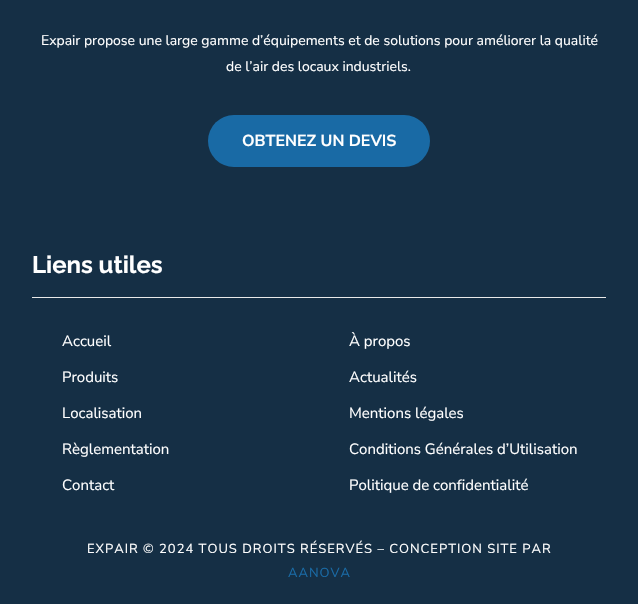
void draw(SkCanvas* canvas) {
    SkPaint paint;
    paint.setAntiAlias(true);
    auto spacedText = [&](const char* s, float x, float y, const SkFont& font, const SkPaint& ink, float letter, float word) {
        std::vector<SkGlyphID> glyphs(font.countText(s, strlen(s), SkTextEncoding::kUTF8));
        std::vector<float> xs(glyphs.size());
        font.textToGlyphs(s, strlen(s), SkTextEncoding::kUTF8, glyphs);
        font.getXPos(glyphs, xs, x);
        float extra = 0;
        for (size_t i = 0; i < glyphs.size(); i++) {
            xs[i] += extra;
            extra += letter + word * (glyphs[i] == font.unicharToGlyph(' '));
        }
        canvas->drawTextBlob(SkTextBlob::MakeFromPosHGlyphs(glyphs, xs, y, font), 0, 0, ink);
    };
    canvas->clear(0xFF152F45);
    SkFont font1(fontMgr->matchFamilyStyle("Nunito Sans", SkFontStyle(200, SkFontStyle::kNormal_Width, SkFontStyle::kUpright_Slant)), 14);
    font1.setSubpixel(true);
    paint.setColor(0xFFFFFFFF);
    canvas->drawString("Expair propose une large gamme d’équipements et de solutions pour améliorer la qualité", 41, 45, font1, paint);
    canvas->drawString("de l’air des locaux industriels.", 226, 71, font1, paint);
    paint.setColor(0xFF196AA5);
    canvas->drawRoundRect(SkRect::MakeXYWH(208, 115, 222, 52), 26, 26, paint);
    SkFont font2(fontMgr->matchFamilyStyle("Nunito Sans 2", SkFontStyle(200, SkFontStyle::kNormal_Width, SkFontStyle::kUpright_Slant)), 16);
    font2.setSubpixel(true);
    paint.setColor(0xFFFFFFFF);
    canvas->drawString("OBTENEZ UN DEVIS", 242, 146, font2, paint);
    paint.setColor(0xFFE9E9E9);
    canvas->drawRect(SkRect::MakeXYWH(32, 297, 574, 1), paint);
    SkFont font3(fontMgr->matchFamilyStyle("Raleway", SkFontStyle(100, SkFontStyle::kNormal_Width, SkFontStyle::kUpright_Slant)), 24);
    font3.setSubpixel(true);
    paint.setColor(0xFFFFFFFF);
    canvas->drawString("Liens utiles", 32, 273, font3, paint);
    SkFont font4(fontMgr->matchFamilyStyle("Nunito Sans", SkFontStyle(200, SkFontStyle::kNormal_Width, SkFontStyle::kUpright_Slant)), 15);
    font4.setSubpixel(true);
    canvas->drawString("Accueil", 62, 346, font4, paint);
    canvas->drawString("À propos", 349, 346, font4, paint);
    canvas->drawString("Produits", 62, 382, font4, paint);
    canvas->drawString("Actualités", 349, 382, font4, paint);
    canvas->drawString("Localisation", 62, 418, font4, paint);
    canvas->drawString("Mentions légales", 349, 418, font4, paint);
    canvas->drawString("Règlementation", 62, 454, font4, paint);
    canvas->drawString("Conditions Générales d’Utilisation", 349, 454, font4, paint);
    canvas->drawString("Contact", 62, 490, font4, paint);
    canvas->drawString("Politique de confidentialité", 349, 490, font4, paint);
    SkFont font5(fontMgr->matchFamilyStyle("Nunito Sans", SkFontStyle(200, SkFontStyle::kNormal_Width, SkFontStyle::kUpright_Slant)), 13);
    font5.setSubpixel(true);
    spacedText("EXPAIR © 2024 TOUS DROITS RÉSERVÉS – CONCEPTION SITE PAR", 87, 553, font5, paint, 1, 0);
    paint.setColor(0xFF196AA5);
    spacedText("AANOVA", 288, 577, font5, paint, 1, 0);
}
